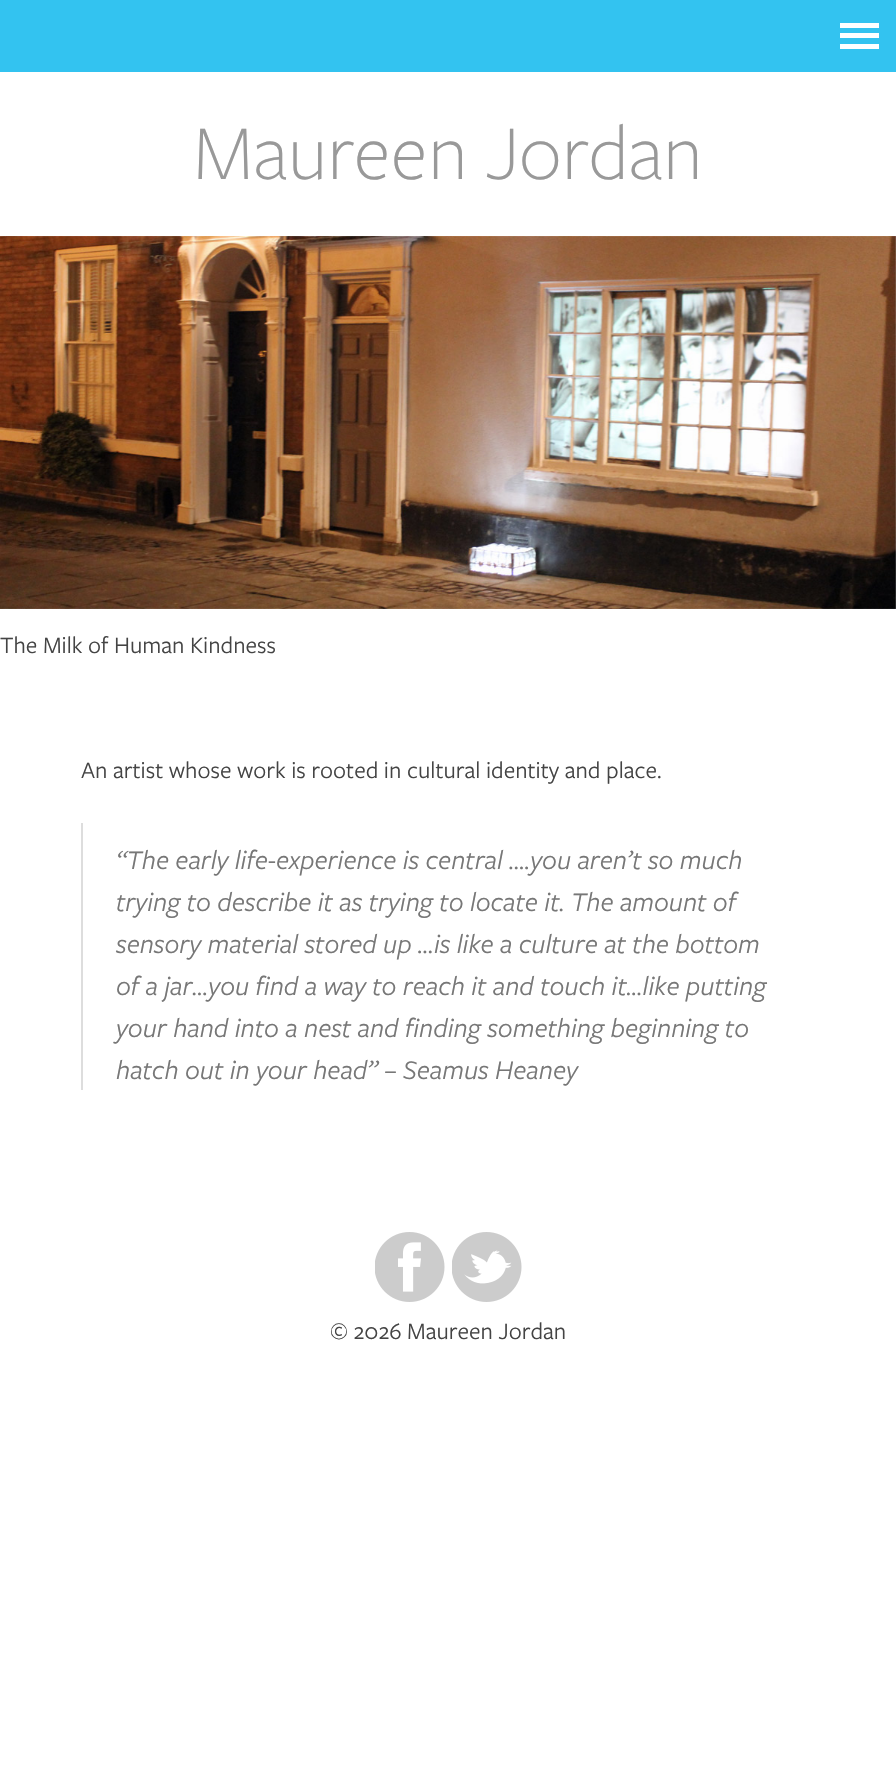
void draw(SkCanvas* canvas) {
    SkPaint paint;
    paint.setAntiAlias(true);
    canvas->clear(0xFFFFFFFF);
    paint.setColor(0xFF33C3F0);
    canvas->drawRect(SkRect::MakeXYWH(0, 0, 896, 72), paint);
    paint.setColor(0xFFFFFFFF);
    canvas->drawRect(SkRect::MakeXYWH(840, 23, 39, 5), paint);
    canvas->drawRect(SkRect::MakeXYWH(840, 33, 39, 5), paint);
    canvas->drawRect(SkRect::MakeXYWH(840, 44, 39, 5), paint);
    SkFont font1(fontMgr->matchFamilyStyle("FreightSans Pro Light", SkFontStyle(300, SkFontStyle::kNormal_Width, SkFontStyle::kUpright_Slant)), 80.5f);
    font1.setSubpixel(true);
    paint.setColor(0xFF999999);
    canvas->drawString("Maureen Jordan", 193, 179, font1, paint);
    canvas->drawImageRect(SkImages::DeferredFromEncodedData(SkData::MakeFromFileName("img1.png")), SkRect::MakeXYWH(0, 236, 896, 373), SkSamplingOptions());
    SkFont font2(fontMgr->matchFamilyStyle("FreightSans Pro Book", SkFontStyle::Normal()), 24.5f);
    font2.setSubpixel(true);
    paint.setColor(0xFF444444);
    canvas->drawString("The Milk of Human Kindness", 0, 653, font2, paint);
    canvas->drawString("An artist whose work is rooted in cultural identity and place.", 81, 778, font2, paint);
    paint.setColor(0xFFDDDDDD);
    canvas->drawRect(SkRect::MakeXYWH(81, 823, 2, 267), paint);
    SkFont font3(fontMgr->matchFamilyStyle("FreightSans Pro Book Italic", SkFontStyle::Italic()), 28);
    font3.setSubpixel(true);
    paint.setColor(0xFF777777);
    canvas->drawString("“The early life-experience is central ….you aren’t so much", 116, 869, font3, paint);
    canvas->drawString("trying to describe it as trying to locate it. The amount of", 116, 911, font3, paint);
    canvas->drawString("sensory material stored up …is like a culture at the bottom", 116, 953, font3, paint);
    canvas->drawString("of a jar…you find a way to reach it and touch it…like putting", 116, 995, font3, paint);
    canvas->drawString("your hand into a nest and finding something beginning to", 116, 1037, font3, paint);
    canvas->drawString("hatch out in your head” – Seamus Heaney", 116, 1079, font3, paint);
    canvas->drawImageRect(SkImages::DeferredFromEncodedData(SkData::MakeFromFileName("img2.png")), SkRect::MakeXYWH(375, 1232, 70, 70), SkSamplingOptions());
    canvas->drawImageRect(SkImages::DeferredFromEncodedData(SkData::MakeFromFileName("img3.png")), SkRect::MakeXYWH(452, 1232, 70, 70), SkSamplingOptions());
    paint.setColor(0xFF444444);
    canvas->drawString("© 2026 Maureen Jordan", 330, 1339, font2, paint);
}
